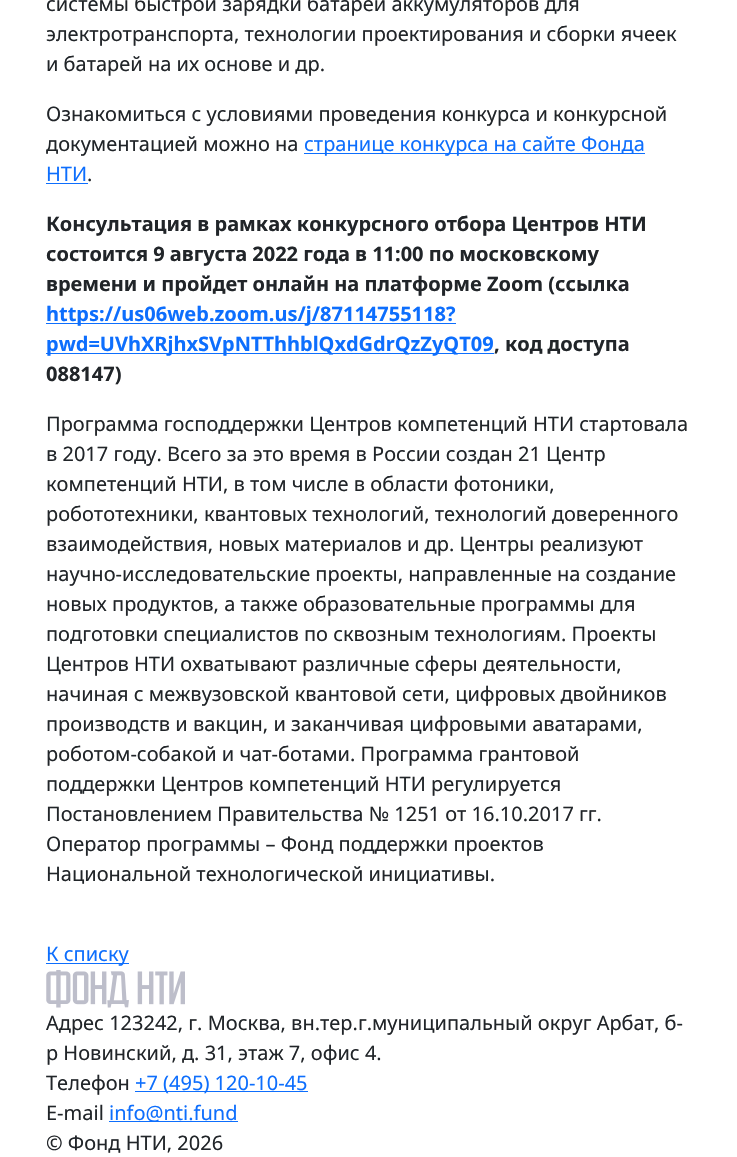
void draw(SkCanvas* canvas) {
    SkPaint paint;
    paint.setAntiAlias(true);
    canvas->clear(0xFFFFFFFF);
    SkFont font1(fontMgr->matchFamilyStyle("Noto Sans", SkFontStyle::Normal()), 20);
    font1.setSubpixel(true);
    paint.setColor(0xFF212529);
    canvas->drawString("системы быстрой зарядки батарей аккумуляторов для", 46, 11, font1, paint);
    canvas->drawString("электротранспорта, технологии проектирования и сборки ячеек", 46, 41, font1, paint);
    canvas->drawString("и батарей на их основе и др.", 46, 71, font1, paint);
    canvas->drawString("Ознакомиться с условиями проведения конкурса и конкурсной", 46, 121, font1, paint);
    canvas->drawString("документацией можно на", 46, 151, font1, paint);
    paint.setColor(0xFF0D6EFD);
    canvas->drawRect(SkRect::MakeXYWH(304, 153, 341, 1), paint);
    canvas->drawString("странице конкурса на сайте Фонда", 304, 151, font1, paint);
    canvas->drawString("НТИ", 46, 181, font1, paint);
    canvas->drawRect(SkRect::MakeXYWH(46, 183, 42, 1), paint);
    paint.setColor(0xFF212529);
    canvas->drawString(".", 87, 181, font1, paint);
    SkFont font2(fontMgr->matchFamilyStyle("Noto Sans", SkFontStyle::Bold()), 20);
    font2.setSubpixel(true);
    canvas->drawString("Консультация в рамках конкурсного отбора Центров НТИ", 46, 231, font2, paint);
    canvas->drawString("состоится 9 августа 2022 года в 11:00 по московскому", 46, 261, font2, paint);
    canvas->drawString("времени и пройдет онлайн на платформе Zoom (ссылка", 46, 291, font2, paint);
    paint.setColor(0xFF0D6EFD);
    canvas->drawRect(SkRect::MakeXYWH(46, 323, 410, 1), paint);
    canvas->drawString("https://us06web.zoom.us/j/87114755118?", 46, 321, font2, paint);
    canvas->drawRect(SkRect::MakeXYWH(46, 353, 448, 1), paint);
    canvas->drawString("pwd=UVhXRjhxSVpNTThhblQxdGdrQzZyQT09", 46, 351, font2, paint);
    paint.setColor(0xFF212529);
    canvas->drawString(", код доступа", 494, 351, font2, paint);
    canvas->drawString("088147)", 46, 381, font2, paint);
    canvas->drawString("Программа господдержки Центров компетенций НТИ стартовала", 46, 431, font1, paint);
    canvas->drawString("в 2017 году. Всего за это время в России создан 21 Центр", 46, 461, font1, paint);
    canvas->drawString("компетенций НТИ, в том числе в области фотоники,", 46, 491, font1, paint);
    canvas->drawString("робототехники, квантовых технологий, технологий доверенного", 46, 521, font1, paint);
    canvas->drawString("взаимодействия, новых материалов и др. Центры реализуют", 46, 551, font1, paint);
    canvas->drawString("научно-исследовательские проекты, направленные на создание", 46, 581, font1, paint);
    canvas->drawString("новых продуктов, а также образовательные программы для", 46, 611, font1, paint);
    canvas->drawString("подготовки специалистов по сквозным технологиям. Проекты", 46, 641, font1, paint);
    canvas->drawString("Центров НТИ охватывают различные сферы деятельности,", 46, 671, font1, paint);
    canvas->drawString("начиная с межвузовской квантовой сети, цифровых двойников", 46, 701, font1, paint);
    canvas->drawString("производств и вакцин, и заканчивая цифровыми аватарами,", 46, 731, font1, paint);
    canvas->drawString("роботом-собакой и чат-ботами. Программа грантовой", 46, 761, font1, paint);
    canvas->drawString("поддержки Центров компетенций НТИ регулируется", 46, 791, font1, paint);
    canvas->drawString("Постановлением Правительства № 1251 от 16.10.2017 гг.", 46, 821, font1, paint);
    canvas->drawString("Оператор программы – Фонд поддержки проектов", 46, 851, font1, paint);
    canvas->drawString("Национальной технологической инициативы.", 46, 881, font1, paint);
    paint.setColor(0xFF0D6EFD);
    canvas->drawRect(SkRect::MakeXYWH(46, 963, 83, 1), paint);
    canvas->drawString("К списку", 46, 961, font1, paint);
    canvas->drawImageRect(SkImages::DeferredFromEncodedData(SkData::MakeFromFileName("img1.png")), SkRect::MakeXYWH(46, 970, 139, 38), SkSamplingOptions());
    paint.setColor(0xFF212529);
    canvas->drawString("Адрес 123242, г. Москва, вн.тер.г.муниципальный округ Арбат, б-", 46, 1030, font1, paint);
    canvas->drawString("р Новинский, д. 31, этаж 7, офис 4.", 46, 1060, font1, paint);
    canvas->drawString("Телефон", 46, 1090, font1, paint);
    paint.setColor(0xFF0D6EFD);
    canvas->drawRect(SkRect::MakeXYWH(135, 1091, 173, 1), paint);
    canvas->drawString("+7 (495) 120-10-45", 135, 1090, font1, paint);
    paint.setColor(0xFF212529);
    canvas->drawString("E-mail", 46, 1120, font1, paint);
    paint.setColor(0xFF0D6EFD);
    canvas->drawRect(SkRect::MakeXYWH(109, 1121, 129, 1), paint);
    canvas->drawString("info@nti.fund", 109, 1120, font1, paint);
    paint.setColor(0xFF212529);
    canvas->drawString("© Фонд НТИ, 2026", 46, 1150, font1, paint);
}
